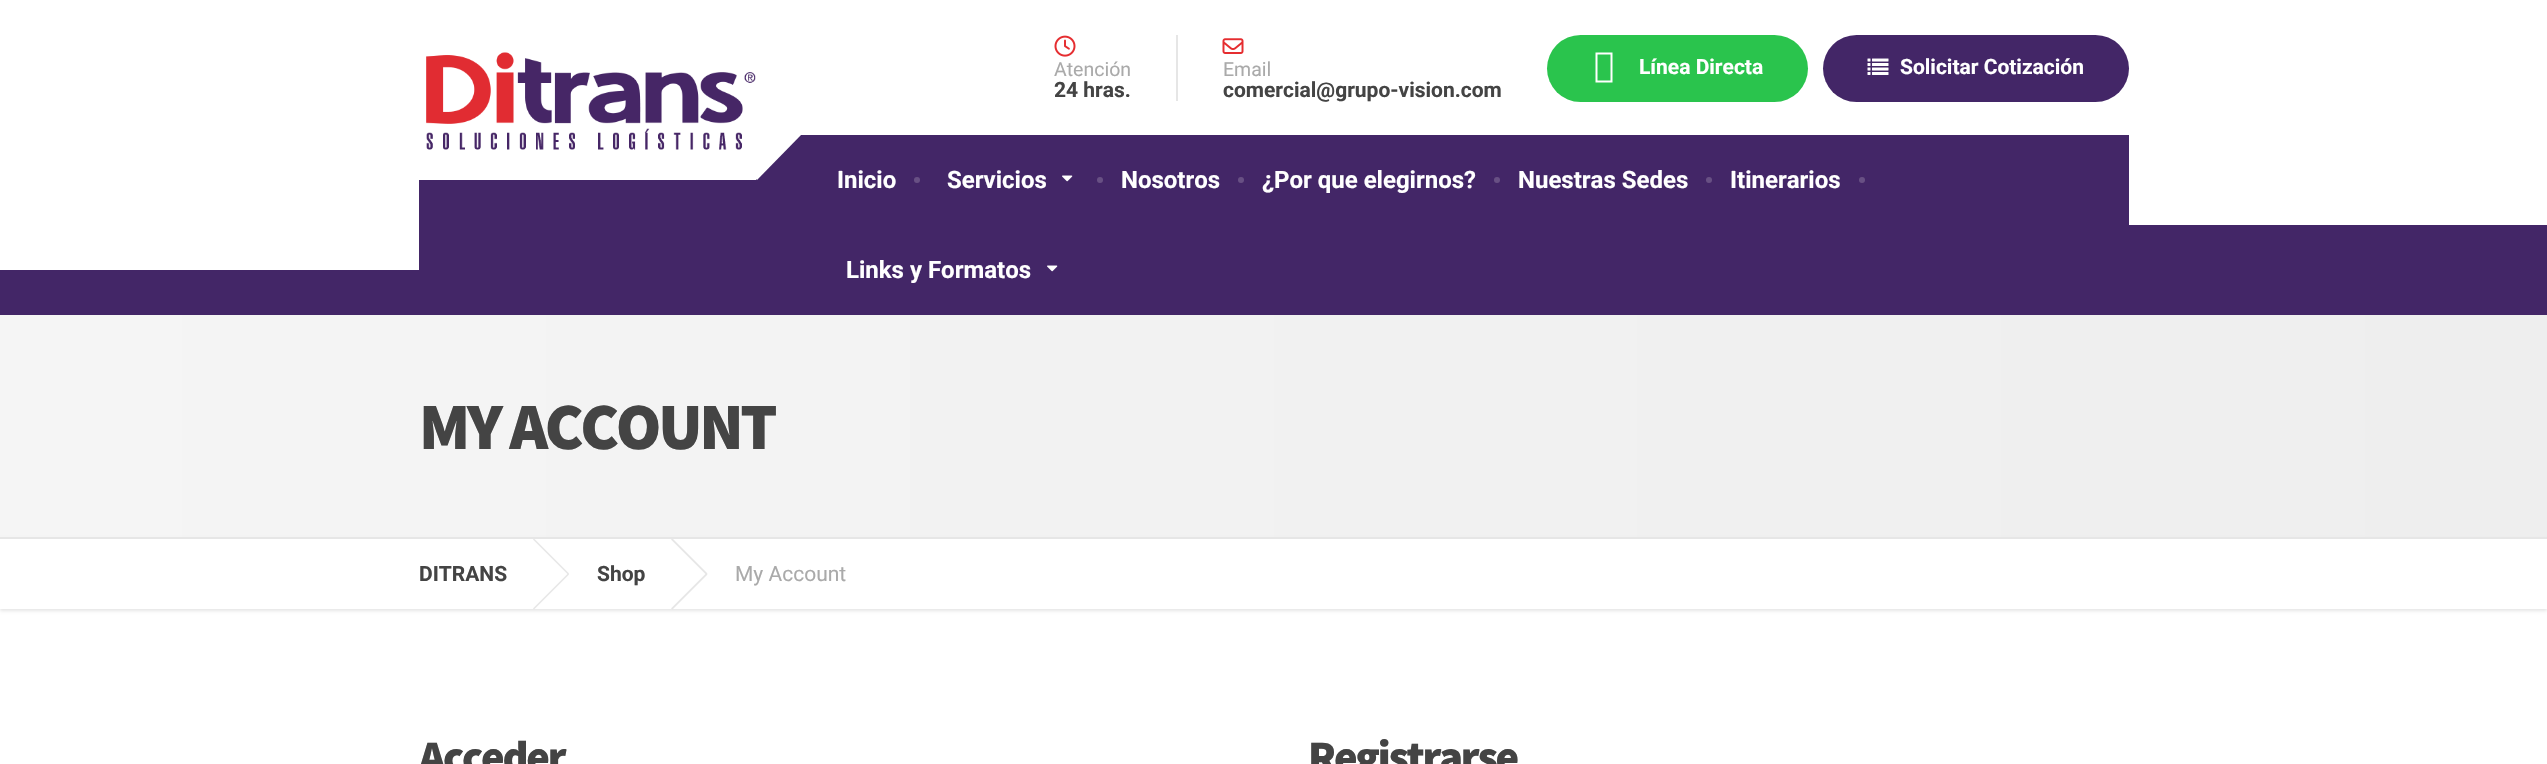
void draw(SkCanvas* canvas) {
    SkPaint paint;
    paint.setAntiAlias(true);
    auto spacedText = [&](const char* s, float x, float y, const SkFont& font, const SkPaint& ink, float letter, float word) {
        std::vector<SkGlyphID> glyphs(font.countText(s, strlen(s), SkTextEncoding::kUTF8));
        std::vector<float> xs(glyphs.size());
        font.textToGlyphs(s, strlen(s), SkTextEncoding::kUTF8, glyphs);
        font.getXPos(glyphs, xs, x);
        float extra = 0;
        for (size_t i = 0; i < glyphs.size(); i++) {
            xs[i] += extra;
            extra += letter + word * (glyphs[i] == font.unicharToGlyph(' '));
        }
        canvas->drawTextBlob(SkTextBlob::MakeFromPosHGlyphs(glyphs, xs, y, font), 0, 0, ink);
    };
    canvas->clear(0xFFFFFFFF);
    paint.setColor(0xFF432667);
    canvas->drawRect(SkRect::MakeXYWH(0, 135, 2547, 180), paint);
    paint.setColor(0xFFFFFFFF);
    canvas->drawRect(SkRect::MakeXYWH(0, 135, 419, 135), paint);
    canvas->drawRect(SkRect::MakeXYWH(419, 135, 337, 45), paint);
    canvas->drawPath(SkPathBuilder().moveTo(802, 134).lineTo(757, 180).lineTo(711, 134).lineTo(757, 89).close().detach(), paint);
    canvas->drawImageRect(SkImages::DeferredFromEncodedData(SkData::MakeFromFileName("img1.png")), SkRect::MakeXYWH(426, 52, 330, 98), SkSamplingOptions());
    canvas->drawImageRect(SkImages::DeferredFromEncodedData(SkData::MakeFromFileName("img2.png")), SkRect::MakeXYWH(1054, 35, 22, 22), SkSamplingOptions());
    SkFont font1(fontMgr->matchFamilyStyle("Roboto", SkFontStyle::Normal()), 19.5f);
    font1.setSubpixel(true);
    paint.setColor(0xFFAAAAAA);
    canvas->drawString("Atención", 1054, 76, font1, paint);
    SkFont font2(fontMgr->matchFamilyStyle("Roboto", SkFontStyle::Bold()), 21);
    font2.setSubpixel(true);
    paint.setColor(0xFF444444);
    canvas->drawString("24 hras.", 1054, 97, font2, paint);
    paint.setColor(0xFFE6E6E6);
    canvas->drawRect(SkRect::MakeXYWH(1176, 35, 2, 66), paint);
    canvas->drawImageRect(SkImages::DeferredFromEncodedData(SkData::MakeFromFileName("img3.png")), SkRect::MakeXYWH(1222, 38, 22, 16), SkSamplingOptions());
    paint.setColor(0xFFAAAAAA);
    canvas->drawString("Email", 1223, 76, font1, paint);
    paint.setColor(0xFF444444);
    canvas->drawString("comercial@grupo-vision.com", 1223, 97, font2, paint);
    paint.setColor(0xFF2AC44D);
    canvas->drawRoundRect(SkRect::MakeXYWH(1547, 35, 261, 67), 33.5f, 33.5f, paint);
    paint.setColor(0xFFFFFFFF);
    canvas->drawPath(SkPathBuilder().moveTo(1595.5f, 82.5f).lineTo(1595.5f, 52.5f).lineTo(1612.5f, 52.5f).lineTo(1612.5f, 82.5f).close().moveTo(1597.5f, 80.5f).lineTo(1610.5f, 80.5f).lineTo(1610.5f, 54.5f).lineTo(1597.5f, 54.5f).close().detach(), paint);
    canvas->drawString("Línea Directa", 1639, 74, font2, paint);
    paint.setColor(0xFF432667);
    canvas->drawRoundRect(SkRect::MakeXYWH(1823, 35, 306, 67), 33.5f, 33.5f, paint);
    canvas->drawImageRect(SkImages::DeferredFromEncodedData(SkData::MakeFromFileName("img4.png")), SkRect::MakeXYWH(1867, 58, 22, 17), SkSamplingOptions());
    paint.setColor(0xFFFFFFFF);
    canvas->drawString("Solicitar Cotización", 1900, 74, font2, paint);
    SkFont font3(fontMgr->matchFamilyStyle("Roboto", SkFontStyle::Bold()), 24);
    font3.setSubpixel(true);
    canvas->drawString("Inicio", 837, 188, font3, paint);
    paint.setColor(0xFF685084);
    canvas->drawCircle(917, 180, 3, paint);
    paint.setColor(0xFFFFFFFF);
    canvas->drawString("Servicios", 947, 188, font3, paint);
    paint.setColor(0xFF685084);
    canvas->drawCircle(1100, 180, 3, paint);
    canvas->drawImageRect(SkImages::DeferredFromEncodedData(SkData::MakeFromFileName("img5.png")), SkRect::MakeXYWH(1062, 175, 11, 7), SkSamplingOptions());
    paint.setColor(0xFFFFFFFF);
    canvas->drawString("Nosotros", 1121, 188, font3, paint);
    paint.setColor(0xFF685084);
    canvas->drawCircle(1241, 180, 3, paint);
    paint.setColor(0xFFFFFFFF);
    canvas->drawString("¿Por que elegirnos?", 1262, 188, font3, paint);
    paint.setColor(0xFF685084);
    canvas->drawCircle(1497, 180, 3, paint);
    paint.setColor(0xFFFFFFFF);
    canvas->drawString("Nuestras Sedes", 1518, 188, font3, paint);
    paint.setColor(0xFF685084);
    canvas->drawCircle(1709, 180, 3, paint);
    paint.setColor(0xFFFFFFFF);
    canvas->drawString("Itinerarios", 1730, 188, font3, paint);
    paint.setColor(0xFF685084);
    canvas->drawCircle(1862, 180, 3, paint);
    paint.setColor(0xFFFFFFFF);
    canvas->drawString("Links y Formatos", 846, 278, font3, paint);
    canvas->drawImageRect(SkImages::DeferredFromEncodedData(SkData::MakeFromFileName("img5.png")), SkRect::MakeXYWH(1047, 265, 11, 7), SkSamplingOptions());
    canvas->drawRect(SkRect::MakeXYWH(2129, 135, 418, 90), paint);
    {
        const SkColor colors[] = {0xFFF5F5F5, 0xFFEEEEEE};
        const float stops[] = {0, 1};
        const SkPoint ends[] = {{0, 426}, {2547, 426}};
        paint.setShader(SkGradientShader::MakeLinear(ends, colors, stops, 2, SkTileMode::kClamp));
        paint.setAlpha(255);
    }
    canvas->drawRect(SkRect::MakeXYWH(0, 315, 2547, 222), paint);
    SkFont font4(fontMgr->matchFamilyStyle("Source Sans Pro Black", SkFontStyle(900, SkFontStyle::kNormal_Width, SkFontStyle::kUpright_Slant)), 66);
    font4.setSubpixel(true);
    paint.setShader(nullptr);
    paint.setColor(0xFF444444);
    spacedText("MY ACCOUNT", 419, 449, font4, paint, -3.25f, 0);
    canvas->save();
    canvas->clipPath(SkPathBuilder(SkPathFillType::kEvenOdd).moveTo(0, 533).lineTo(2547, 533).lineTo(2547, 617).lineTo(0, 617).close().moveTo(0, 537).lineTo(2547, 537).lineTo(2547, 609).lineTo(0, 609).close().detach(), true);
    paint.setColor(0xFFE6E6E6);
    paint.setMaskFilter(SkMaskFilter::MakeBlur(kNormal_SkBlurStyle, 1.5f));
    canvas->drawRect(SkRect::MakeXYWH(0, 539, 2547, 72), paint);
    paint.setMaskFilter(nullptr);
    canvas->restore();
    canvas->drawRect(SkRect::MakeXYWH(0, 537, 2547, 2), paint);
    paint.setColor(0xFF444444);
    canvas->drawString("DITRANS", 419, 581, font2, paint);
    paint.setColor(0xFFE6E6E6);
    canvas->drawPath(SkPathBuilder().moveTo(533, 539.5f).lineTo(534, 538.5f).lineTo(569, 573.5f).lineTo(568, 574.5f).close().detach(), paint);
    canvas->drawPath(SkPathBuilder().moveTo(568, 573.5f).lineTo(569, 574.5f).lineTo(534, 609.5f).lineTo(533, 608.5f).close().detach(), paint);
    paint.setColor(0xFF444444);
    canvas->drawString("Shop", 597, 581, font2, paint);
    paint.setColor(0xFFE6E6E6);
    canvas->drawPath(SkPathBuilder().moveTo(671, 539.5f).lineTo(672.5f, 538.5f).lineTo(707.5f, 573.5f).lineTo(706, 574.5f).close().detach(), paint);
    canvas->drawPath(SkPathBuilder().moveTo(706, 573.5f).lineTo(707.5f, 574.5f).lineTo(672.5f, 609.5f).lineTo(671, 608.5f).close().detach(), paint);
    SkFont font5(fontMgr->matchFamilyStyle("Roboto", SkFontStyle::Normal()), 21);
    font5.setSubpixel(true);
    paint.setColor(0xFFAAAAAA);
    canvas->drawString("My Account", 735, 581, font5, paint);
    SkFont font6(fontMgr->matchFamilyStyle("Source Sans Pro Black", SkFontStyle(900, SkFontStyle::kNormal_Width, SkFontStyle::kUpright_Slant)), 45);
    font6.setSubpixel(true);
    paint.setColor(0xFF444444);
    spacedText("Acceder", 419, 772, font6, paint, -2.25f, 0);
    spacedText("Registrarse", 1308, 772, font6, paint, -2.25f, 0);
}
